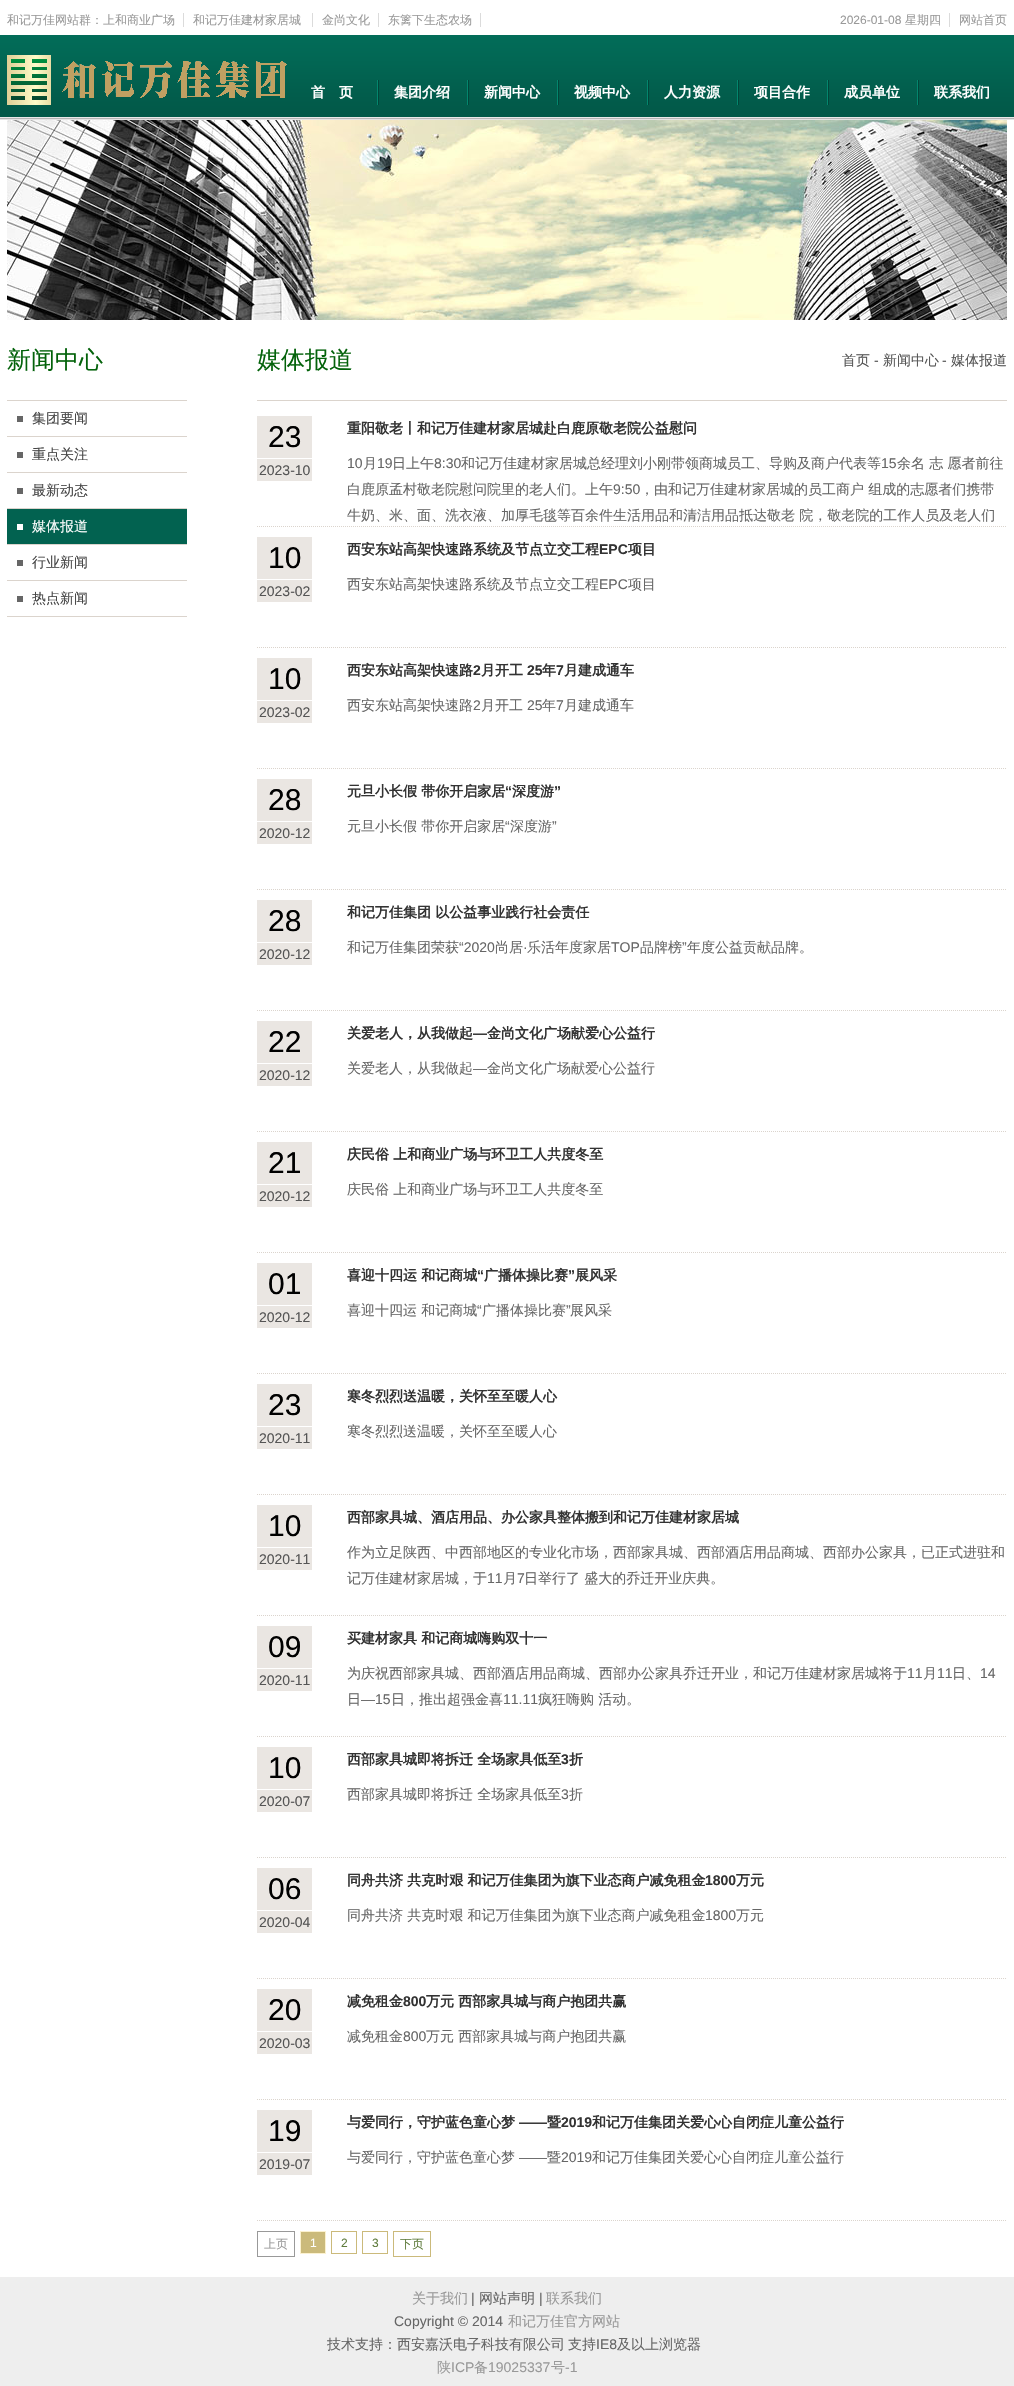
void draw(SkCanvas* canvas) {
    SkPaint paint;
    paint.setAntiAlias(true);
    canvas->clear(0xFFFFFFFF);
    SkFont font1(fontMgr->matchFamilyStyle("WenQuanYi Zen Hei", SkFontStyle(500, SkFontStyle::kNormal_Width, SkFontStyle::kUpright_Slant)), 12);
    font1.setSubpixel(true);
    paint.setColor(0xFF999999);
    canvas->drawString("和记万佳网站群：上和商业广场", 7, 24, font1, paint);
    paint.setColor(0xFFDBDBDB);
    canvas->drawRect(SkRect::MakeXYWH(183, 13, 1, 14), paint);
    paint.setColor(0xFF999999);
    canvas->drawString("和记万佳建材家居城", 193, 24, font1, paint);
    paint.setColor(0xFFDBDBDB);
    canvas->drawRect(SkRect::MakeXYWH(312, 13, 1, 14), paint);
    paint.setColor(0xFF999999);
    canvas->drawString("金尚文化", 322, 24, font1, paint);
    paint.setColor(0xFFDBDBDB);
    canvas->drawRect(SkRect::MakeXYWH(378, 13, 1, 14), paint);
    paint.setColor(0xFF999999);
    canvas->drawString("东篱下生态农场", 388, 24, font1, paint);
    paint.setColor(0xFFDBDBDB);
    canvas->drawRect(SkRect::MakeXYWH(480, 13, 1, 14), paint);
    SkFont font2(fontMgr->matchFamilyStyle("Liberation Sans", SkFontStyle::Normal()), 12);
    font2.setSubpixel(true);
    paint.setColor(0xFF999999);
    canvas->drawString("2026-01-08", 840, 24, font2, paint);
    canvas->drawString("星期四", 905, 24, font1, paint);
    paint.setColor(0xFFDBDBDB);
    canvas->drawRect(SkRect::MakeXYWH(949, 13, 1, 14), paint);
    paint.setColor(0xFF999999);
    canvas->drawString("网站首页", 959, 24, font1, paint);
    canvas->drawImageRect(SkImages::DeferredFromEncodedData(SkData::MakeFromFileName("img2.png")), SkRect::MakeXYWH(0, 35, 1014, 85), SkSamplingOptions());
    canvas->drawImageRect(SkImages::DeferredFromEncodedData(SkData::MakeFromFileName("img1.png")), SkRect::MakeXYWH(7, 55, 280, 50), SkSamplingOptions());
    SkFont font3(fontMgr->matchFamilyStyle("WenQuanYi Zen Hei", SkFontStyle::Bold()), 14);
    font3.setSubpixel(true);
    paint.setColor(0xFFFFFFFF);
    canvas->drawString("首　页", 311, 97, font3, paint);
    canvas->drawImageRect(SkImages::DeferredFromEncodedData(SkData::MakeFromFileName("img3.png")), SkRect::MakeXYWH(377, 80, 2, 25), SkSamplingOptions());
    canvas->drawString("集团介绍", 394, 97, font3, paint);
    canvas->drawImageRect(SkImages::DeferredFromEncodedData(SkData::MakeFromFileName("img3.png")), SkRect::MakeXYWH(467, 80, 2, 25), SkSamplingOptions());
    canvas->drawString("新闻中心", 484, 97, font3, paint);
    canvas->drawImageRect(SkImages::DeferredFromEncodedData(SkData::MakeFromFileName("img3.png")), SkRect::MakeXYWH(557, 80, 2, 25), SkSamplingOptions());
    canvas->drawString("视频中心", 574, 97, font3, paint);
    canvas->drawImageRect(SkImages::DeferredFromEncodedData(SkData::MakeFromFileName("img3.png")), SkRect::MakeXYWH(647, 80, 2, 25), SkSamplingOptions());
    canvas->drawString("人力资源", 664, 97, font3, paint);
    canvas->drawImageRect(SkImages::DeferredFromEncodedData(SkData::MakeFromFileName("img3.png")), SkRect::MakeXYWH(737, 80, 2, 25), SkSamplingOptions());
    canvas->drawString("项目合作", 754, 97, font3, paint);
    canvas->drawImageRect(SkImages::DeferredFromEncodedData(SkData::MakeFromFileName("img3.png")), SkRect::MakeXYWH(827, 80, 2, 25), SkSamplingOptions());
    canvas->drawString("成员单位", 844, 97, font3, paint);
    canvas->drawImageRect(SkImages::DeferredFromEncodedData(SkData::MakeFromFileName("img3.png")), SkRect::MakeXYWH(917, 80, 2, 25), SkSamplingOptions());
    canvas->drawString("联系我们", 934, 97, font3, paint);
    canvas->drawImageRect(SkImages::DeferredFromEncodedData(SkData::MakeFromFileName("img4.png")), SkRect::MakeXYWH(7, 120, 1000, 200), SkSamplingOptions());
    paint.setColor(0xFFDBD4CD);
    canvas->drawRect(SkRect::MakeXYWH(7, 400, 180, 1), paint);
    SkFont font4(fontMgr->matchFamilyStyle("WenQuanYi Zen Hei", SkFontStyle(500, SkFontStyle::kNormal_Width, SkFontStyle::kUpright_Slant)), 24);
    font4.setSubpixel(true);
    paint.setColor(0xFF03620A);
    canvas->drawString("新闻中心", 7, 368, font4, paint);
    paint.setColor(0xFF666666);
    canvas->drawRect(SkRect::MakeXYWH(17, 416, 6, 6), paint);
    paint.setColor(0xFFDBD4CD);
    canvas->drawRect(SkRect::MakeXYWH(7, 436, 180, 1), paint);
    SkFont font5(fontMgr->matchFamilyStyle("WenQuanYi Zen Hei", SkFontStyle(500, SkFontStyle::kNormal_Width, SkFontStyle::kUpright_Slant)), 14);
    font5.setSubpixel(true);
    paint.setColor(0xFF444444);
    canvas->drawString("集团要闻", 32, 423, font5, paint);
    paint.setColor(0xFF666666);
    canvas->drawRect(SkRect::MakeXYWH(17, 452, 6, 6), paint);
    paint.setColor(0xFFDBD4CD);
    canvas->drawRect(SkRect::MakeXYWH(7, 472, 180, 1), paint);
    paint.setColor(0xFF444444);
    canvas->drawString("重点关注", 32, 459, font5, paint);
    paint.setColor(0xFF666666);
    canvas->drawRect(SkRect::MakeXYWH(17, 488, 6, 6), paint);
    paint.setColor(0xFFDBD4CD);
    canvas->drawRect(SkRect::MakeXYWH(7, 508, 180, 1), paint);
    paint.setColor(0xFF444444);
    canvas->drawString("最新动态", 32, 495, font5, paint);
    paint.setColor(0xFF026250);
    canvas->drawRect(SkRect::MakeXYWH(7, 509, 180, 35), paint);
    paint.setColor(0xFFFFFFFF);
    canvas->drawRect(SkRect::MakeXYWH(17, 524, 6, 6), paint);
    paint.setColor(0xFFDBD4CD);
    canvas->drawRect(SkRect::MakeXYWH(7, 544, 180, 1), paint);
    paint.setColor(0xFFFFFFFF);
    canvas->drawString("媒体报道", 32, 531, font5, paint);
    paint.setColor(0xFF666666);
    canvas->drawRect(SkRect::MakeXYWH(17, 560, 6, 6), paint);
    paint.setColor(0xFFDBD4CD);
    canvas->drawRect(SkRect::MakeXYWH(7, 580, 180, 1), paint);
    paint.setColor(0xFF444444);
    canvas->drawString("行业新闻", 32, 567, font5, paint);
    paint.setColor(0xFF666666);
    canvas->drawRect(SkRect::MakeXYWH(17, 596, 6, 6), paint);
    paint.setColor(0xFFDBD4CD);
    canvas->drawRect(SkRect::MakeXYWH(7, 616, 180, 1), paint);
    paint.setColor(0xFF444444);
    canvas->drawString("热点新闻", 32, 603, font5, paint);
    paint.setColor(0xFFDBD4CD);
    canvas->drawRect(SkRect::MakeXYWH(257, 400, 750, 1), paint);
    paint.setColor(0xFF03620A);
    canvas->drawString("媒体报道", 257, 368, font4, paint);
    paint.setColor(0xFF555555);
    canvas->drawString("首页", 842, 365, font5, paint);
    SkFont font6(fontMgr->matchFamilyStyle("Liberation Sans", SkFontStyle::Normal()), 14);
    font6.setSubpixel(true);
    canvas->drawString("-", 874, 365, font6, paint);
    canvas->drawString("新闻中心", 883, 365, font5, paint);
    canvas->drawString("-", 942, 365, font6, paint);
    canvas->drawString("媒体报道", 951, 365, font5, paint);
    paint.setStyle(SkPaint::kStroke_Style);
    paint.setStrokeWidth(1);
    paint.setColor(0xFFDBD4CD);
    paint.setPathEffect(SkDashPathEffect::Make({{1, 1}}, 0));
    canvas->drawPath(SkPathBuilder().moveTo(257, 526.5f).lineTo(1007, 526.5f).detach(), paint);
    paint.setPathEffect(nullptr);
    paint.setStyle(SkPaint::kFill_Style);
    paint.setColor(0xFFEAE6E2);
    canvas->drawRect(SkRect::MakeXYWH(257, 416, 55, 65), paint);
    paint.setColor(0xFFFFFFFF);
    canvas->drawRect(SkRect::MakeXYWH(257, 458, 55, 1), paint);
    SkFont font7(fontMgr->matchFamilyStyle("Liberation Sans", SkFontStyle::Normal()), 30);
    font7.setSubpixel(true);
    paint.setColor(0xFF000000);
    canvas->drawString("23", 268, 447, font7, paint);
    paint.setColor(0xFF555555);
    canvas->drawString("2023-10", 259, 475, font6, paint);
    paint.setColor(0xFF333333);
    canvas->drawString("重阳敬老丨和记万佳建材家居城赴白鹿原敬老院公益慰问", 347, 433, font3, paint);
    paint.setColor(0xFF666666);
    canvas->drawString("10", 347, 468, font6, paint);
    canvas->drawString("月", 363, 468, font5, paint);
    canvas->drawString("19", 377, 468, font6, paint);
    canvas->drawString("日上午", 392, 468, font5, paint);
    canvas->drawString("8:30", 434, 468, font6, paint);
    canvas->drawString("和记万佳建材家居城总经理刘小刚带领商城员工、导购及商户代表等", 461, 468, font5, paint);
    canvas->drawString("15", 881, 468, font6, paint);
    canvas->drawString("余名 志 愿者前往", 897, 468, font5, paint);
    canvas->drawString("白鹿原孟村敬老院慰问院里的老人们。上午", 347, 494, font5, paint);
    canvas->drawString("9:50", 613, 494, font6, paint);
    canvas->drawString("，由和记万佳建材家居城的员工商户 组成的志愿者们携带", 640, 494, font5, paint);
    canvas->drawString("牛奶、米、面、洗衣液、加厚毛毯等百余件生活用品和清洁用品抵达敬老 院，敬老院的工作人员及老人们", 347, 520, font5, paint);
    paint.setStyle(SkPaint::kStroke_Style);
    paint.setColor(0xFFDBD4CD);
    paint.setPathEffect(SkDashPathEffect::Make({{1, 1}}, 0));
    canvas->drawPath(SkPathBuilder().moveTo(257, 647.5f).lineTo(1007, 647.5f).detach(), paint);
    paint.setPathEffect(nullptr);
    paint.setStyle(SkPaint::kFill_Style);
    paint.setColor(0xFFEAE6E2);
    canvas->drawRect(SkRect::MakeXYWH(257, 537, 55, 65), paint);
    paint.setColor(0xFFFFFFFF);
    canvas->drawRect(SkRect::MakeXYWH(257, 579, 55, 1), paint);
    paint.setColor(0xFF000000);
    canvas->drawString("10", 268, 568, font7, paint);
    paint.setColor(0xFF555555);
    canvas->drawString("2023-02", 259, 596, font6, paint);
    paint.setColor(0xFF333333);
    canvas->drawString("西安东站高架快速路系统及节点立交工程", 347, 554, font3, paint);
    SkFont font8(fontMgr->matchFamilyStyle("Liberation Sans", SkFontStyle::Bold()), 14);
    font8.setSubpixel(true);
    canvas->drawString("EPC", 599, 554, font8, paint);
    canvas->drawString("项目", 628, 554, font3, paint);
    paint.setColor(0xFF666666);
    canvas->drawString("西安东站高架快速路系统及节点立交工程", 347, 589, font5, paint);
    canvas->drawString("EPC", 599, 589, font6, paint);
    canvas->drawString("项目", 628, 589, font5, paint);
    paint.setStyle(SkPaint::kStroke_Style);
    paint.setColor(0xFFDBD4CD);
    paint.setPathEffect(SkDashPathEffect::Make({{1, 1}}, 0));
    canvas->drawPath(SkPathBuilder().moveTo(257, 768.5f).lineTo(1007, 768.5f).detach(), paint);
    paint.setPathEffect(nullptr);
    paint.setStyle(SkPaint::kFill_Style);
    paint.setColor(0xFFEAE6E2);
    canvas->drawRect(SkRect::MakeXYWH(257, 658, 55, 65), paint);
    paint.setColor(0xFFFFFFFF);
    canvas->drawRect(SkRect::MakeXYWH(257, 700, 55, 1), paint);
    paint.setColor(0xFF000000);
    canvas->drawString("10", 268, 689, font7, paint);
    paint.setColor(0xFF555555);
    canvas->drawString("2023-02", 259, 717, font6, paint);
    paint.setColor(0xFF333333);
    canvas->drawString("西安东站高架快速路", 347, 675, font3, paint);
    canvas->drawString("2", 473, 675, font8, paint);
    canvas->drawString("月开工", 481, 675, font3, paint);
    canvas->drawString("25", 527, 675, font8, paint);
    canvas->drawString("年", 542, 675, font3, paint);
    canvas->drawString("7", 556, 675, font8, paint);
    canvas->drawString("月建成通车", 564, 675, font3, paint);
    paint.setColor(0xFF666666);
    canvas->drawString("西安东站高架快速路", 347, 710, font5, paint);
    canvas->drawString("2", 473, 710, font6, paint);
    canvas->drawString("月开工", 481, 710, font5, paint);
    canvas->drawString("25", 527, 710, font6, paint);
    canvas->drawString("年", 542, 710, font5, paint);
    canvas->drawString("7", 556, 710, font6, paint);
    canvas->drawString("月建成通车", 564, 710, font5, paint);
    paint.setStyle(SkPaint::kStroke_Style);
    paint.setColor(0xFFDBD4CD);
    paint.setPathEffect(SkDashPathEffect::Make({{1, 1}}, 0));
    canvas->drawPath(SkPathBuilder().moveTo(257, 889.5f).lineTo(1007, 889.5f).detach(), paint);
    paint.setPathEffect(nullptr);
    paint.setStyle(SkPaint::kFill_Style);
    paint.setColor(0xFFEAE6E2);
    canvas->drawRect(SkRect::MakeXYWH(257, 779, 55, 65), paint);
    paint.setColor(0xFFFFFFFF);
    canvas->drawRect(SkRect::MakeXYWH(257, 821, 55, 1), paint);
    paint.setColor(0xFF000000);
    canvas->drawString("28", 268, 810, font7, paint);
    paint.setColor(0xFF555555);
    canvas->drawString("2020-12", 259, 838, font6, paint);
    paint.setColor(0xFF333333);
    canvas->drawString("元旦小长假 带你开启家居", 347, 796, font3, paint);
    canvas->drawString("“", 505, 796, font8, paint);
    canvas->drawString("深度游", 512, 796, font3, paint);
    canvas->drawString("”", 554, 796, font8, paint);
    paint.setColor(0xFF666666);
    canvas->drawString("元旦小长假 带你开启家居", 347, 831, font5, paint);
    canvas->drawString("“", 505, 831, font6, paint);
    canvas->drawString("深度游", 510, 831, font5, paint);
    canvas->drawString("”", 552, 831, font6, paint);
    paint.setStyle(SkPaint::kStroke_Style);
    paint.setColor(0xFFDBD4CD);
    paint.setPathEffect(SkDashPathEffect::Make({{1, 1}}, 0));
    canvas->drawPath(SkPathBuilder().moveTo(257, 1010.5f).lineTo(1007, 1010.5f).detach(), paint);
    paint.setPathEffect(nullptr);
    paint.setStyle(SkPaint::kFill_Style);
    paint.setColor(0xFFEAE6E2);
    canvas->drawRect(SkRect::MakeXYWH(257, 900, 55, 65), paint);
    paint.setColor(0xFFFFFFFF);
    canvas->drawRect(SkRect::MakeXYWH(257, 942, 55, 1), paint);
    paint.setColor(0xFF000000);
    canvas->drawString("28", 268, 931, font7, paint);
    paint.setColor(0xFF555555);
    canvas->drawString("2020-12", 259, 959, font6, paint);
    paint.setColor(0xFF333333);
    canvas->drawString("和记万佳集团 以公益事业践行社会责任", 347, 917, font3, paint);
    paint.setColor(0xFF666666);
    canvas->drawString("和记万佳集团荣获", 347, 952, font5, paint);
    canvas->drawString("“2020", 459, 952, font6, paint);
    canvas->drawString("尚居", 495, 952, font5, paint);
    canvas->drawString("乐活年度家居", 527, 952, font5, paint);
    canvas->drawString("TOP", 611, 952, font6, paint);
    canvas->drawString("品牌榜", 640, 952, font5, paint);
    canvas->drawString("”", 682, 952, font6, paint);
    canvas->drawString("年度公益贡献品牌。", 687, 952, font5, paint);
    canvas->drawString("·", 523, 952, font6, paint);
    paint.setStyle(SkPaint::kStroke_Style);
    paint.setColor(0xFFDBD4CD);
    paint.setPathEffect(SkDashPathEffect::Make({{1, 1}}, 0));
    canvas->drawPath(SkPathBuilder().moveTo(257, 1131.5f).lineTo(1007, 1131.5f).detach(), paint);
    paint.setPathEffect(nullptr);
    paint.setStyle(SkPaint::kFill_Style);
    paint.setColor(0xFFEAE6E2);
    canvas->drawRect(SkRect::MakeXYWH(257, 1021, 55, 65), paint);
    paint.setColor(0xFFFFFFFF);
    canvas->drawRect(SkRect::MakeXYWH(257, 1063, 55, 1), paint);
    paint.setColor(0xFF000000);
    canvas->drawString("22", 268, 1052, font7, paint);
    paint.setColor(0xFF555555);
    canvas->drawString("2020-12", 259, 1080, font6, paint);
    paint.setColor(0xFF333333);
    canvas->drawString("关爱老人，从我做起", 347, 1038, font3, paint);
    canvas->drawString("—", 473, 1038, font8, paint);
    canvas->drawString("金尚文化广场献爱心公益行", 487, 1038, font3, paint);
    paint.setColor(0xFF666666);
    canvas->drawString("关爱老人，从我做起", 347, 1073, font5, paint);
    canvas->drawString("—", 473, 1073, font6, paint);
    canvas->drawString("金尚文化广场献爱心公益行", 487, 1073, font5, paint);
    paint.setStyle(SkPaint::kStroke_Style);
    paint.setColor(0xFFDBD4CD);
    paint.setPathEffect(SkDashPathEffect::Make({{1, 1}}, 0));
    canvas->drawPath(SkPathBuilder().moveTo(257, 1252.5f).lineTo(1007, 1252.5f).detach(), paint);
    paint.setPathEffect(nullptr);
    paint.setStyle(SkPaint::kFill_Style);
    paint.setColor(0xFFEAE6E2);
    canvas->drawRect(SkRect::MakeXYWH(257, 1142, 55, 65), paint);
    paint.setColor(0xFFFFFFFF);
    canvas->drawRect(SkRect::MakeXYWH(257, 1184, 55, 1), paint);
    paint.setColor(0xFF000000);
    canvas->drawString("21", 268, 1173, font7, paint);
    paint.setColor(0xFF555555);
    canvas->drawString("2020-12", 259, 1201, font6, paint);
    paint.setColor(0xFF333333);
    canvas->drawString("庆民俗 上和商业广场与环卫工人共度冬至", 347, 1159, font3, paint);
    paint.setColor(0xFF666666);
    canvas->drawString("庆民俗 上和商业广场与环卫工人共度冬至", 347, 1194, font5, paint);
    paint.setStyle(SkPaint::kStroke_Style);
    paint.setColor(0xFFDBD4CD);
    paint.setPathEffect(SkDashPathEffect::Make({{1, 1}}, 0));
    canvas->drawPath(SkPathBuilder().moveTo(257, 1373.5f).lineTo(1007, 1373.5f).detach(), paint);
    paint.setPathEffect(nullptr);
    paint.setStyle(SkPaint::kFill_Style);
    paint.setColor(0xFFEAE6E2);
    canvas->drawRect(SkRect::MakeXYWH(257, 1263, 55, 65), paint);
    paint.setColor(0xFFFFFFFF);
    canvas->drawRect(SkRect::MakeXYWH(257, 1305, 55, 1), paint);
    paint.setColor(0xFF000000);
    canvas->drawString("01", 268, 1294, font7, paint);
    paint.setColor(0xFF555555);
    canvas->drawString("2020-12", 259, 1322, font6, paint);
    paint.setColor(0xFF333333);
    canvas->drawString("喜迎十四运 和记商城", 347, 1280, font3, paint);
    canvas->drawString("“", 477, 1280, font8, paint);
    canvas->drawString("广播体操比赛", 484, 1280, font3, paint);
    canvas->drawString("”", 568, 1280, font8, paint);
    canvas->drawString("展风采", 575, 1280, font3, paint);
    paint.setColor(0xFF666666);
    canvas->drawString("喜迎十四运 和记商城", 347, 1315, font5, paint);
    canvas->drawString("“", 477, 1315, font6, paint);
    canvas->drawString("广播体操比赛", 482, 1315, font5, paint);
    canvas->drawString("”", 566, 1315, font6, paint);
    canvas->drawString("展风采", 570, 1315, font5, paint);
    paint.setStyle(SkPaint::kStroke_Style);
    paint.setColor(0xFFDBD4CD);
    paint.setPathEffect(SkDashPathEffect::Make({{1, 1}}, 0));
    canvas->drawPath(SkPathBuilder().moveTo(257, 1494.5f).lineTo(1007, 1494.5f).detach(), paint);
    paint.setPathEffect(nullptr);
    paint.setStyle(SkPaint::kFill_Style);
    paint.setColor(0xFFEAE6E2);
    canvas->drawRect(SkRect::MakeXYWH(257, 1384, 55, 65), paint);
    paint.setColor(0xFFFFFFFF);
    canvas->drawRect(SkRect::MakeXYWH(257, 1426, 55, 1), paint);
    paint.setColor(0xFF000000);
    canvas->drawString("23", 268, 1415, font7, paint);
    paint.setColor(0xFF555555);
    canvas->drawString("2020-11", 259, 1443, font6, paint);
    paint.setColor(0xFF333333);
    canvas->drawString("寒冬烈烈送温暖，关怀至至暖人心", 347, 1401, font3, paint);
    paint.setColor(0xFF666666);
    canvas->drawString("寒冬烈烈送温暖，关怀至至暖人心", 347, 1436, font5, paint);
    paint.setStyle(SkPaint::kStroke_Style);
    paint.setColor(0xFFDBD4CD);
    paint.setPathEffect(SkDashPathEffect::Make({{1, 1}}, 0));
    canvas->drawPath(SkPathBuilder().moveTo(257, 1615.5f).lineTo(1007, 1615.5f).detach(), paint);
    paint.setPathEffect(nullptr);
    paint.setStyle(SkPaint::kFill_Style);
    paint.setColor(0xFFEAE6E2);
    canvas->drawRect(SkRect::MakeXYWH(257, 1505, 55, 65), paint);
    paint.setColor(0xFFFFFFFF);
    canvas->drawRect(SkRect::MakeXYWH(257, 1547, 55, 1), paint);
    paint.setColor(0xFF000000);
    canvas->drawString("10", 268, 1536, font7, paint);
    paint.setColor(0xFF555555);
    canvas->drawString("2020-11", 259, 1564, font6, paint);
    paint.setColor(0xFF333333);
    canvas->drawString("西部家具城、酒店用品、办公家具整体搬到和记万佳建材家居城", 347, 1522, font3, paint);
    paint.setColor(0xFF666666);
    canvas->drawString("作为立足陕西、中西部地区的专业化市场，西部家具城、西部酒店用品商城、西部办公家具，已正式进驻和", 347, 1557, font5, paint);
    canvas->drawString("记万佳建材家居城，于", 347, 1583, font5, paint);
    canvas->drawString("11", 487, 1583, font6, paint);
    canvas->drawString("月", 503, 1583, font5, paint);
    canvas->drawString("7", 517, 1583, font6, paint);
    canvas->drawString("日举行了 盛大的乔迁开业庆典。", 524, 1583, font5, paint);
    paint.setStyle(SkPaint::kStroke_Style);
    paint.setColor(0xFFDBD4CD);
    paint.setPathEffect(SkDashPathEffect::Make({{1, 1}}, 0));
    canvas->drawPath(SkPathBuilder().moveTo(257, 1736.5f).lineTo(1007, 1736.5f).detach(), paint);
    paint.setPathEffect(nullptr);
    paint.setStyle(SkPaint::kFill_Style);
    paint.setColor(0xFFEAE6E2);
    canvas->drawRect(SkRect::MakeXYWH(257, 1626, 55, 65), paint);
    paint.setColor(0xFFFFFFFF);
    canvas->drawRect(SkRect::MakeXYWH(257, 1668, 55, 1), paint);
    paint.setColor(0xFF000000);
    canvas->drawString("09", 268, 1657, font7, paint);
    paint.setColor(0xFF555555);
    canvas->drawString("2020-11", 259, 1685, font6, paint);
    paint.setColor(0xFF333333);
    canvas->drawString("买建材家具 和记商城嗨购双十一", 347, 1643, font3, paint);
    paint.setColor(0xFF666666);
    canvas->drawString("为庆祝西部家具城、西部酒店用品商城、西部办公家具乔迁开业，和记万佳建材家居城将于", 347, 1678, font5, paint);
    canvas->drawString("11", 907, 1678, font6, paint);
    canvas->drawString("月", 923, 1678, font5, paint);
    canvas->drawString("11", 937, 1678, font6, paint);
    canvas->drawString("日、", 952, 1678, font5, paint);
    canvas->drawString("14", 980, 1678, font6, paint);
    canvas->drawString("日", 347, 1704, font5, paint);
    canvas->drawString("—15", 361, 1704, font6, paint);
    canvas->drawString("日，推出超强金喜", 391, 1704, font5, paint);
    canvas->drawString("11.11", 503, 1704, font6, paint);
    canvas->drawString("疯狂嗨购 活动。", 538, 1704, font5, paint);
    paint.setStyle(SkPaint::kStroke_Style);
    paint.setColor(0xFFDBD4CD);
    paint.setPathEffect(SkDashPathEffect::Make({{1, 1}}, 0));
    canvas->drawPath(SkPathBuilder().moveTo(257, 1857.5f).lineTo(1007, 1857.5f).detach(), paint);
    paint.setPathEffect(nullptr);
    paint.setStyle(SkPaint::kFill_Style);
    paint.setColor(0xFFEAE6E2);
    canvas->drawRect(SkRect::MakeXYWH(257, 1747, 55, 65), paint);
    paint.setColor(0xFFFFFFFF);
    canvas->drawRect(SkRect::MakeXYWH(257, 1789, 55, 1), paint);
    paint.setColor(0xFF000000);
    canvas->drawString("10", 268, 1778, font7, paint);
    paint.setColor(0xFF555555);
    canvas->drawString("2020-07", 259, 1806, font6, paint);
    paint.setColor(0xFF333333);
    canvas->drawString("西部家具城即将拆迁 全场家具低至", 347, 1764, font3, paint);
    canvas->drawString("3", 561, 1764, font8, paint);
    canvas->drawString("折", 569, 1764, font3, paint);
    paint.setColor(0xFF666666);
    canvas->drawString("西部家具城即将拆迁 全场家具低至", 347, 1799, font5, paint);
    canvas->drawString("3", 561, 1799, font6, paint);
    canvas->drawString("折", 569, 1799, font5, paint);
    paint.setStyle(SkPaint::kStroke_Style);
    paint.setColor(0xFFDBD4CD);
    paint.setPathEffect(SkDashPathEffect::Make({{1, 1}}, 0));
    canvas->drawPath(SkPathBuilder().moveTo(257, 1978.5f).lineTo(1007, 1978.5f).detach(), paint);
    paint.setPathEffect(nullptr);
    paint.setStyle(SkPaint::kFill_Style);
    paint.setColor(0xFFEAE6E2);
    canvas->drawRect(SkRect::MakeXYWH(257, 1868, 55, 65), paint);
    paint.setColor(0xFFFFFFFF);
    canvas->drawRect(SkRect::MakeXYWH(257, 1910, 55, 1), paint);
    paint.setColor(0xFF000000);
    canvas->drawString("06", 268, 1899, font7, paint);
    paint.setColor(0xFF555555);
    canvas->drawString("2020-04", 259, 1927, font6, paint);
    paint.setColor(0xFF333333);
    canvas->drawString("同舟共济 共克时艰 和记万佳集团为旗下业态商户减免租金", 347, 1885, font3, paint);
    canvas->drawString("1800", 705, 1885, font8, paint);
    canvas->drawString("万元", 736, 1885, font3, paint);
    paint.setColor(0xFF666666);
    canvas->drawString("同舟共济 共克时艰 和记万佳集团为旗下业态商户减免租金", 347, 1920, font5, paint);
    canvas->drawString("1800", 705, 1920, font6, paint);
    canvas->drawString("万元", 736, 1920, font5, paint);
    paint.setStyle(SkPaint::kStroke_Style);
    paint.setColor(0xFFDBD4CD);
    paint.setPathEffect(SkDashPathEffect::Make({{1, 1}}, 0));
    canvas->drawPath(SkPathBuilder().moveTo(257, 2099.5f).lineTo(1007, 2099.5f).detach(), paint);
    paint.setPathEffect(nullptr);
    paint.setStyle(SkPaint::kFill_Style);
    paint.setColor(0xFFEAE6E2);
    canvas->drawRect(SkRect::MakeXYWH(257, 1989, 55, 65), paint);
    paint.setColor(0xFFFFFFFF);
    canvas->drawRect(SkRect::MakeXYWH(257, 2031, 55, 1), paint);
    paint.setColor(0xFF000000);
    canvas->drawString("20", 268, 2020, font7, paint);
    paint.setColor(0xFF555555);
    canvas->drawString("2020-03", 259, 2048, font6, paint);
    paint.setColor(0xFF333333);
    canvas->drawString("减免租金", 347, 2006, font3, paint);
    canvas->drawString("800", 403, 2006, font8, paint);
    canvas->drawString("万元 西部家具城与商户抱团共赢", 426, 2006, font3, paint);
    paint.setColor(0xFF666666);
    canvas->drawString("减免租金", 347, 2041, font5, paint);
    canvas->drawString("800", 403, 2041, font6, paint);
    canvas->drawString("万元 西部家具城与商户抱团共赢", 426, 2041, font5, paint);
    paint.setStyle(SkPaint::kStroke_Style);
    paint.setColor(0xFFDBD4CD);
    paint.setPathEffect(SkDashPathEffect::Make({{1, 1}}, 0));
    canvas->drawPath(SkPathBuilder().moveTo(257, 2220.5f).lineTo(1007, 2220.5f).detach(), paint);
    paint.setPathEffect(nullptr);
    paint.setStyle(SkPaint::kFill_Style);
    paint.setColor(0xFFEAE6E2);
    canvas->drawRect(SkRect::MakeXYWH(257, 2110, 55, 65), paint);
    paint.setColor(0xFFFFFFFF);
    canvas->drawRect(SkRect::MakeXYWH(257, 2152, 55, 1), paint);
    paint.setColor(0xFF000000);
    canvas->drawString("19", 268, 2141, font7, paint);
    paint.setColor(0xFF555555);
    canvas->drawString("2019-07", 259, 2169, font6, paint);
    paint.setColor(0xFF333333);
    canvas->drawString("与爱同行，守护蓝色童心梦", 347, 2127, font3, paint);
    canvas->drawString("——", 519, 2127, font8, paint);
    canvas->drawString("暨", 547, 2127, font3, paint);
    canvas->drawString("2019", 561, 2127, font8, paint);
    canvas->drawString("和记万佳集团关爱心心自闭症儿童公益行", 592, 2127, font3, paint);
    paint.setColor(0xFF666666);
    canvas->drawString("与爱同行，守护蓝色童心梦", 347, 2162, font5, paint);
    canvas->drawString("——", 519, 2162, font6, paint);
    canvas->drawString("暨", 547, 2162, font5, paint);
    canvas->drawString("2019", 561, 2162, font6, paint);
    canvas->drawString("和记万佳集团关爱心心自闭症儿童公益行", 592, 2162, font5, paint);
    paint.setStyle(SkPaint::kStroke_Style);
    paint.setColor(0xFF999999);
    canvas->drawRect(SkRect::MakeXYWH(257.5f, 2231.5f, 37, 25), paint);
    paint.setStyle(SkPaint::kFill_Style);
    canvas->drawString("上页", 264, 2248, font1, paint);
    paint.setColor(0xFFCBBA7B);
    canvas->drawRect(SkRect::MakeXYWH(300.5f, 2231.5f, 25, 22), paint);
    paint.setStyle(SkPaint::kStroke_Style);
    paint.setColor(0xFFFBF1CF);
    canvas->drawRect(SkRect::MakeXYWH(300.5f, 2231.5f, 25, 22), paint);
    paint.setStyle(SkPaint::kFill_Style);
    paint.setColor(0xFFFFFFFF);
    canvas->drawString("1", 310, 2247, font2, paint);
    paint.setStyle(SkPaint::kStroke_Style);
    paint.setColor(0xFFCBBA7B);
    canvas->drawRect(SkRect::MakeXYWH(331.5f, 2231.5f, 25, 22), paint);
    paint.setStyle(SkPaint::kFill_Style);
    paint.setColor(0xFF607C3D);
    canvas->drawString("2", 341, 2247, font2, paint);
    paint.setStyle(SkPaint::kStroke_Style);
    paint.setColor(0xFFCBBA7B);
    canvas->drawRect(SkRect::MakeXYWH(362.5f, 2231.5f, 25, 22), paint);
    paint.setStyle(SkPaint::kFill_Style);
    paint.setColor(0xFF607C3D);
    canvas->drawString("3", 372, 2247, font2, paint);
    paint.setStyle(SkPaint::kStroke_Style);
    paint.setColor(0xFFCBBA7B);
    canvas->drawRect(SkRect::MakeXYWH(393.5f, 2231.5f, 37, 25), paint);
    paint.setStyle(SkPaint::kFill_Style);
    paint.setColor(0xFF607C3D);
    canvas->drawString("下页", 400, 2248, font1, paint);
    paint.setColor(0xFFEEEEEE);
    canvas->drawRect(SkRect::MakeXYWH(0, 2277, 1014, 109), paint);
    paint.setColor(0xFF999999);
    canvas->drawString("关于我们", 412, 2303, font5, paint);
    paint.setColor(0xFF666666);
    canvas->drawString("|", 471, 2303, font6, paint);
    canvas->drawString("网站声明", 479, 2303, font5, paint);
    canvas->drawString("|", 539, 2303, font6, paint);
    paint.setColor(0xFF999999);
    canvas->drawString("联系我们", 546, 2303, font5, paint);
    paint.setColor(0xFF666666);
    canvas->drawString("Copyright © 2014", 394, 2326, font6, paint);
    paint.setColor(0xFF999999);
    canvas->drawString("和记万佳官方网站", 508, 2326, font5, paint);
    paint.setColor(0xFF666666);
    canvas->drawString("技术支持：西安嘉沃电子科技有限公司", 327, 2349, font5, paint);
    canvas->drawString("支持", 568, 2349, font5, paint);
    canvas->drawString("IE8", 596, 2349, font6, paint);
    canvas->drawString("及以上浏览器", 617, 2349, font5, paint);
    paint.setColor(0xFF999999);
    canvas->drawString("陕", 437, 2372, font5, paint);
    canvas->drawString("ICP", 451, 2372, font6, paint);
    canvas->drawString("备", 474, 2372, font5, paint);
    canvas->drawString("19025337", 488, 2372, font6, paint);
    canvas->drawString("号", 551, 2372, font5, paint);
    canvas->drawString("-1", 565, 2372, font6, paint);
}
